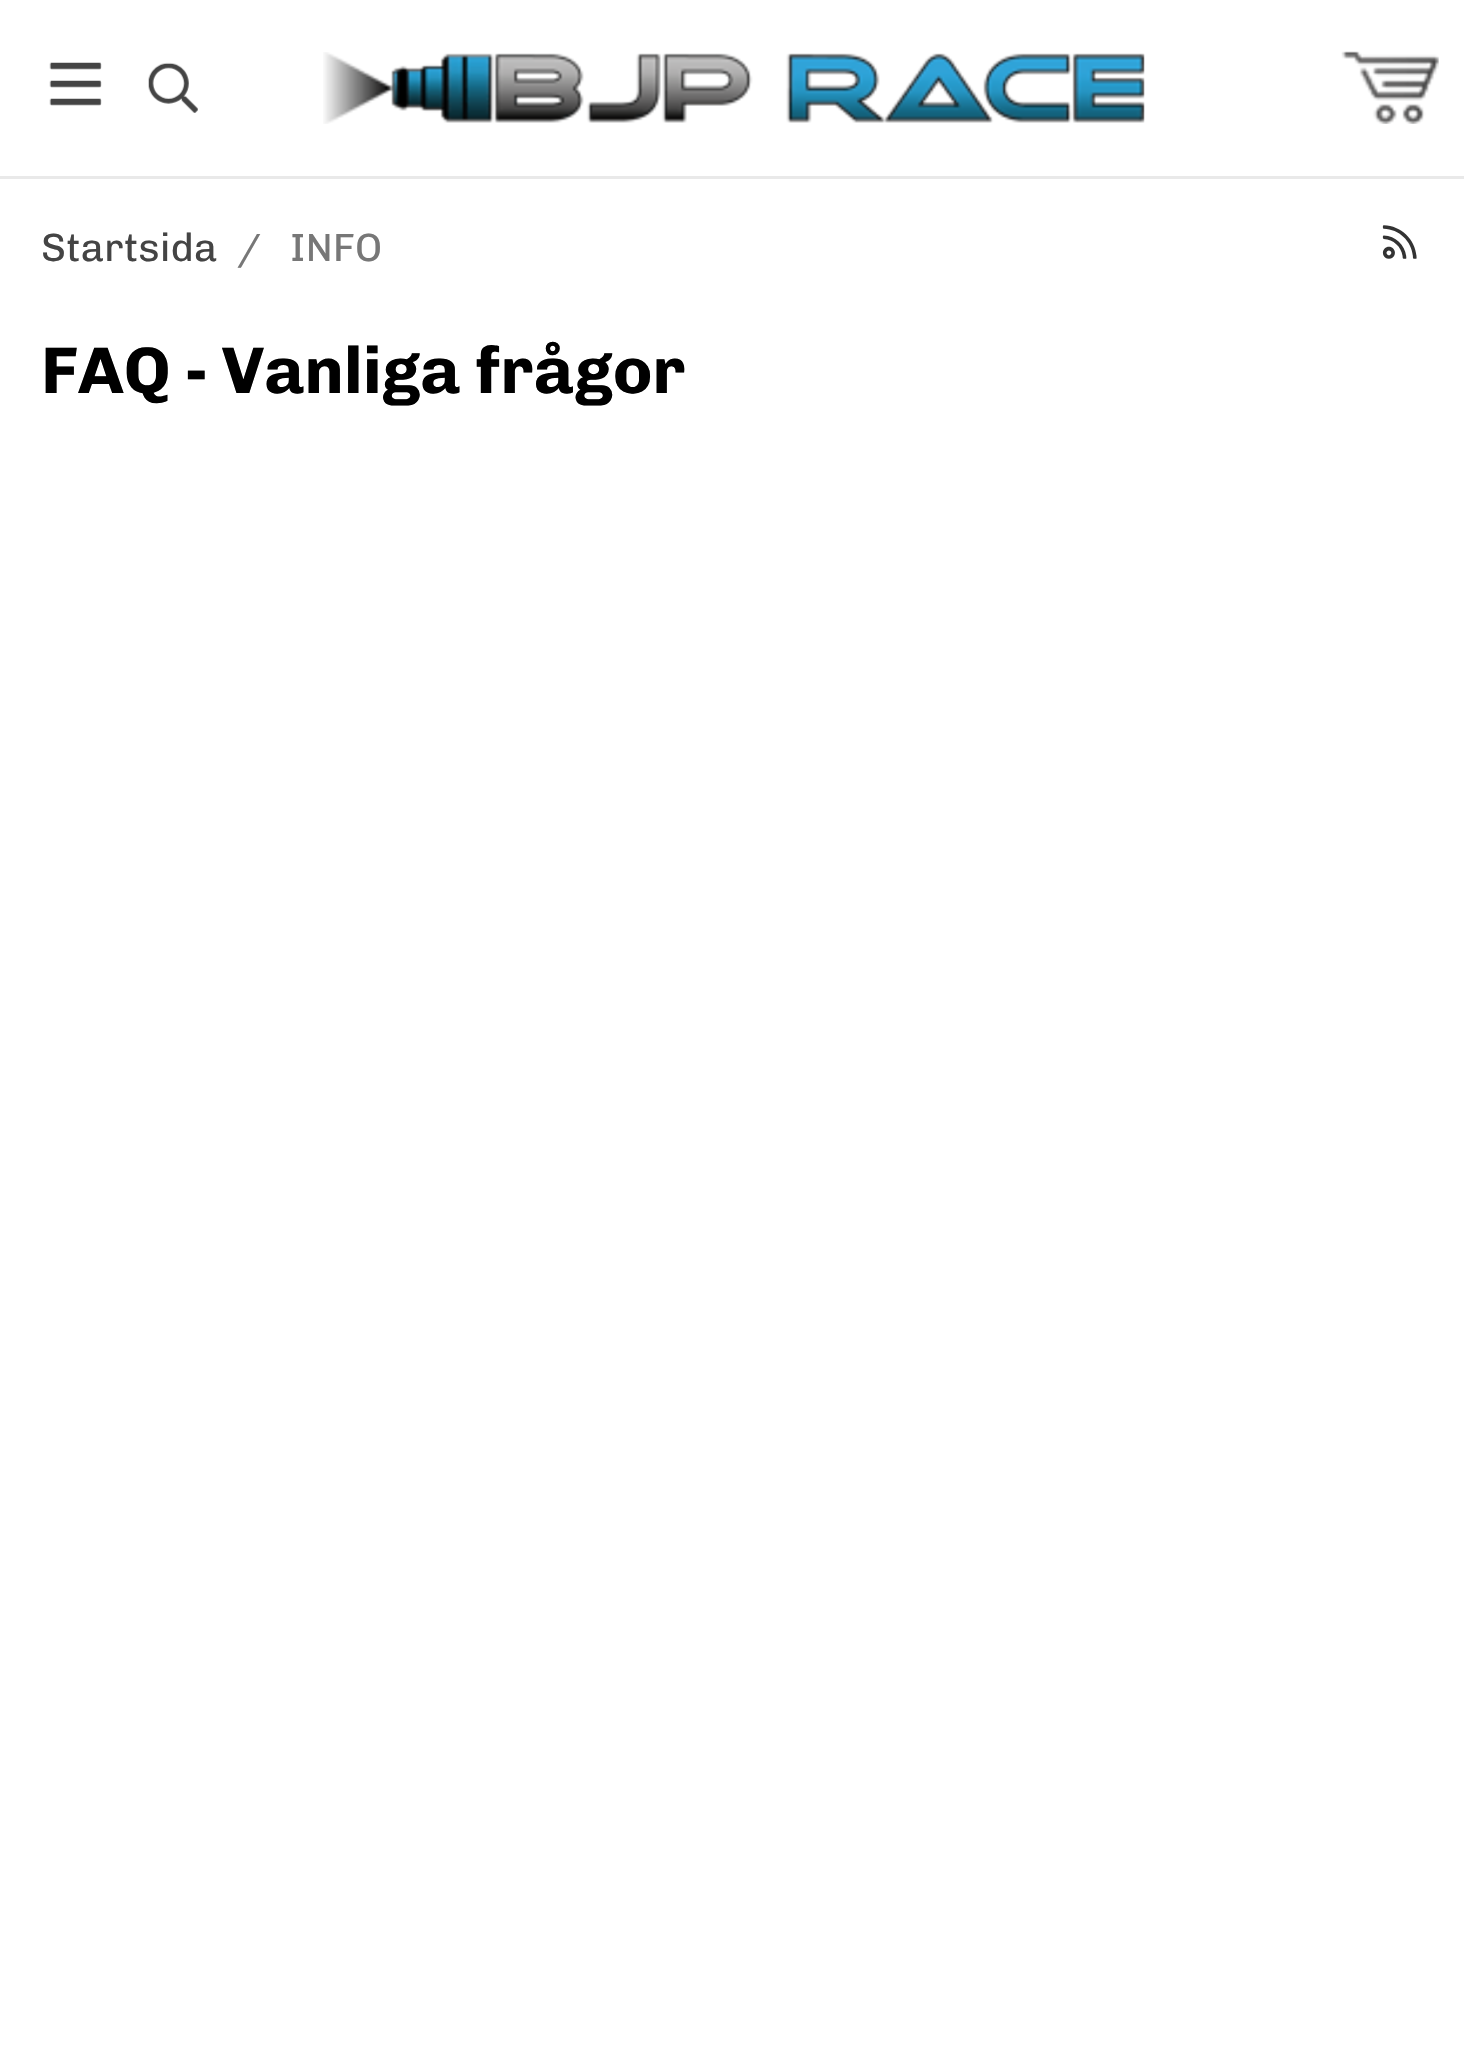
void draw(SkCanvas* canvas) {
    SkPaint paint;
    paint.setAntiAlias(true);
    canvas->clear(0xFFFFFFFF);
    paint.setColor(0xFFE9E9E9);
    canvas->drawRect(SkRect::MakeXYWH(0, 176, 1464, 3), paint);
    canvas->drawImageRect(SkImages::DeferredFromEncodedData(SkData::MakeFromFileName("img1.png")), SkRect::MakeXYWH(49, 62, 53, 44), SkSamplingOptions());
    canvas->drawImageRect(SkImages::DeferredFromEncodedData(SkData::MakeFromFileName("img2.png")), SkRect::MakeXYWH(148, 62, 50, 51), SkSamplingOptions());
    canvas->drawImageRect(SkImages::DeferredFromEncodedData(SkData::MakeFromFileName("img3.png")), SkRect::MakeXYWH(323, 52, 822, 72), SkSamplingOptions());
    canvas->drawImageRect(SkImages::DeferredFromEncodedData(SkData::MakeFromFileName("img4.png")), SkRect::MakeXYWH(1341, 51, 98, 73), SkSamplingOptions());
    SkFont font1(fontMgr->matchFamilyStyle("Chivo", SkFontStyle::Normal()), 39.5f);
    font1.setSubpixel(true);
    paint.setColor(0xFF444444);
    canvas->drawString("Startsida", 41, 261, font1, paint);
    paint.setColor(0xFF777777);
    canvas->drawString("/", 237, 261, font1, paint);
    canvas->drawString("INFO", 290, 261, font1, paint);
    canvas->drawImageRect(SkImages::DeferredFromEncodedData(SkData::MakeFromFileName("img5.png")), SkRect::MakeXYWH(1382, 225, 35, 34), SkSamplingOptions());
    SkFont font2(fontMgr->matchFamilyStyle("Chivo", SkFontStyle::Bold()), 66);
    font2.setSubpixel(true);
    paint.setColor(0xFF000000);
    canvas->drawString("FAQ - Vanliga frågor", 41, 393, font2, paint);
}
